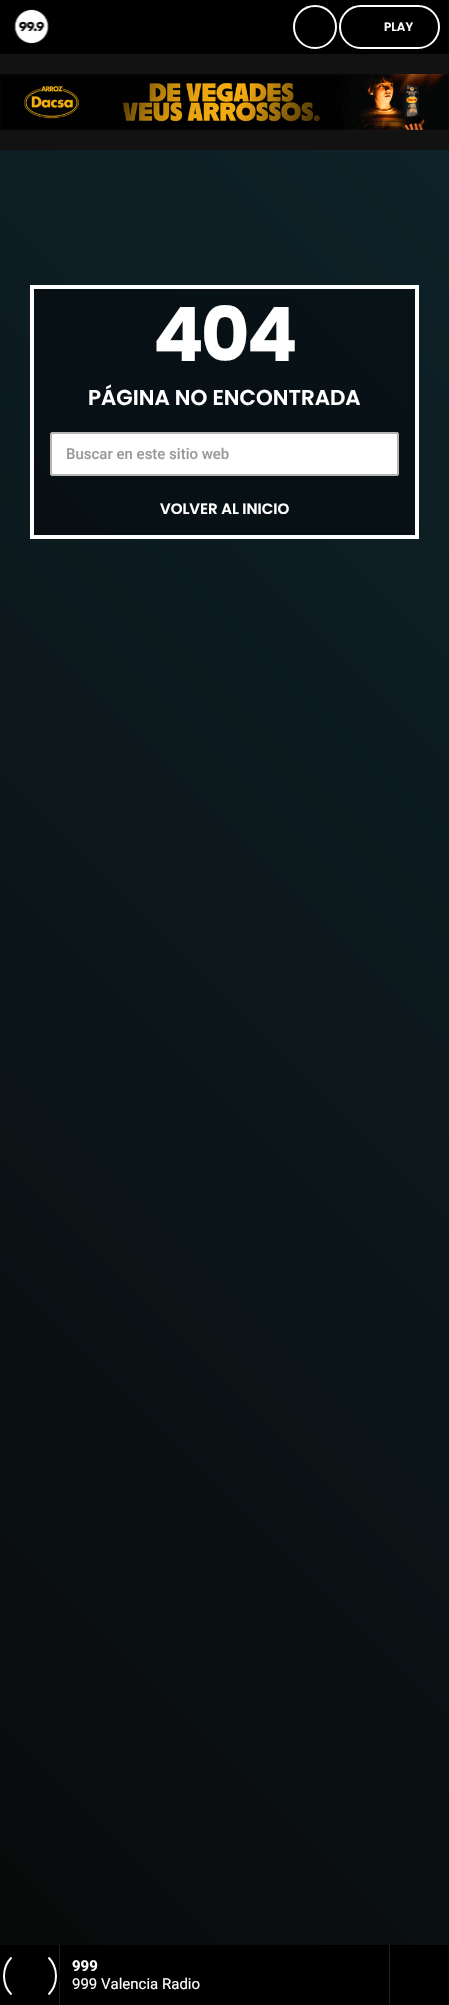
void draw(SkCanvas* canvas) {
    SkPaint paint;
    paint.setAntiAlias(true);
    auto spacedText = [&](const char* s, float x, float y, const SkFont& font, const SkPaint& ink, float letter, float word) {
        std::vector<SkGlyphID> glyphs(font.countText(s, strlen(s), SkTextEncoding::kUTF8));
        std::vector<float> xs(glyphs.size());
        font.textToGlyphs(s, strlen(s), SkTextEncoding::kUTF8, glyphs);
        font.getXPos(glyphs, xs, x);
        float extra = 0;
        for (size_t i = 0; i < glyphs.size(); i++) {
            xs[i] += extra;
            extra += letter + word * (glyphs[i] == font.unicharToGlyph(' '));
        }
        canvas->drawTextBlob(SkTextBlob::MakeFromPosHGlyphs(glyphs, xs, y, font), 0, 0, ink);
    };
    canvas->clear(0xFF121212);
    paint.setColor(0xFF000000);
    canvas->drawRect(SkRect::MakeXYWH(0, 0, 449, 54), paint);
    canvas->drawImageRect(SkImages::DeferredFromEncodedData(SkData::MakeFromFileName("img1.png")), SkRect::MakeXYWH(14, 9, 35, 35), SkSamplingOptions());
    paint.setStyle(SkPaint::kStroke_Style);
    paint.setStrokeWidth(2);
    paint.setColor(0xFFFFFFFF);
    canvas->drawCircle(315, 27, 21, paint);
    canvas->drawRoundRect(SkRect::MakeXYWH(340, 6, 99, 42), 21, 21, paint);
    SkFont font1(fontMgr->matchFamilyStyle("Poppins", SkFontStyle(600, SkFontStyle::kNormal_Width, SkFontStyle::kUpright_Slant)), 12);
    font1.setSubpixel(true);
    paint.setStyle(SkPaint::kFill_Style);
    canvas->drawString("PLAY", 384, 31, font1, paint);
    canvas->drawImageRect(SkImages::DeferredFromEncodedData(SkData::MakeFromFileName("img2.png")), SkRect::MakeXYWH(0, 74, 449, 56), SkSamplingOptions());
    {
        const SkColor colors[] = {0xFF090A0A, 0xFF0E2229};
        const float stops[] = {0, 1};
        const SkPoint ends[] = {{-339, 1615}, {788, 489}};
        paint.setShader(SkGradientShader::MakeLinear(ends, colors, stops, 2, SkTileMode::kClamp));
        paint.setAlpha(255);
    }
    canvas->drawRect(SkRect::MakeXYWH(0, 150, 449, 1795), paint);
    {
        const SkColor colors[] = {0xFF050606, 0xFF081419};
        const float stops[] = {0, 1};
        const SkPoint ends[] = {{-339, 1615}, {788, 489}};
        paint.setShader(SkGradientShader::MakeLinear(ends, colors, stops, 2, SkTileMode::kClamp));
        paint.setAlpha(255);
    }
    canvas->drawRect(SkRect::MakeXYWH(34, 289, 381, 246), paint);
    paint.setStyle(SkPaint::kStroke_Style);
    paint.setStrokeWidth(4);
    paint.setShader(nullptr);
    paint.setColor(0xFFFFFFFF);
    canvas->drawRect(SkRect::MakeXYWH(32, 287, 385, 250), paint);
    SkFont font2(fontMgr->matchFamilyStyle("Poppins", SkFontStyle::Bold()), 75);
    font2.setSubpixel(true);
    paint.setStyle(SkPaint::kFill_Style);
    spacedText("404", 153, 361, font2, paint, -3, 0);
    SkFont font3(fontMgr->matchFamilyStyle("Poppins", SkFontStyle(600, SkFontStyle::kNormal_Width, SkFontStyle::kUpright_Slant)), 21.4f);
    font3.setSubpixel(true);
    canvas->drawString("PÁGINA NO ENCONTRADA", 88, 405, font3, paint);
    canvas->drawRoundRect(SkRect::MakeXYWH(50, 432, 349, 44), 3, 3, paint);
    paint.setStyle(SkPaint::kStroke_Style);
    paint.setStrokeWidth(2);
    paint.setColor(0xB3969696);
    canvas->drawRoundRect(SkRect::MakeXYWH(51, 433, 347, 42), 2, 2, paint);
    SkFont font4(fontMgr->matchFamilyStyle("Roboto", SkFontStyle(500, SkFontStyle::kNormal_Width, SkFontStyle::kUpright_Slant)), 15);
    font4.setSubpixel(true);
    paint.setStyle(SkPaint::kFill_Style);
    paint.setColor(0xFF9A9A9A);
    canvas->drawString("Buscar en este sitio web", 66, 459, font4, paint);
    SkFont font5(fontMgr->matchFamilyStyle("Poppins", SkFontStyle(600, SkFontStyle::kNormal_Width, SkFontStyle::kUpright_Slant)), 15);
    font5.setSubpixel(true);
    paint.setColor(0xFFFFFFFF);
    canvas->drawString("VOLVER AL INICIO", 160, 514, font5, paint);
    paint.setColor(0xFF000000);
    canvas->drawRect(SkRect::MakeXYWH(0, 1945, 449, 60), paint);
    paint.setColor(0xFF1E1E1E);
    canvas->drawRect(SkRect::MakeXYWH(59, 1945, 1, 60), paint);
    paint.setColor(0xFF000000);
    canvas->drawCircle(30, 1976, 30, paint);
    paint.setStyle(SkPaint::kStroke_Style);
    paint.setColor(0xFFFFFFFF);
    canvas->drawPath(SkPathBuilder().moveTo(48.5f, 1957.5f).cubicTo(58.5f, 1967.5f, 58.5f, 1984.5f, 48.5f, 1994.5f).moveTo(11.5f, 1994.5f).cubicTo(1.5f, 1984.5f, 1.5f, 1967.5f, 11.5f, 1957.5f).detach(), paint);
    SkFont font6(fontMgr->matchFamilyStyle("Roboto", SkFontStyle::Bold()), 15);
    font6.setSubpixel(true);
    paint.setStyle(SkPaint::kFill_Style);
    canvas->drawString("999", 72, 1971, font6, paint);
    SkFont font7(fontMgr->matchFamilyStyle("Roboto", SkFontStyle::Normal()), 15);
    font7.setSubpixel(true);
    canvas->drawString("999 Valencia Radio", 72, 1989, font7, paint);
    paint.setColor(0xFF1E1E1E);
    canvas->drawRect(SkRect::MakeXYWH(389, 1945, 1, 60), paint);
}
